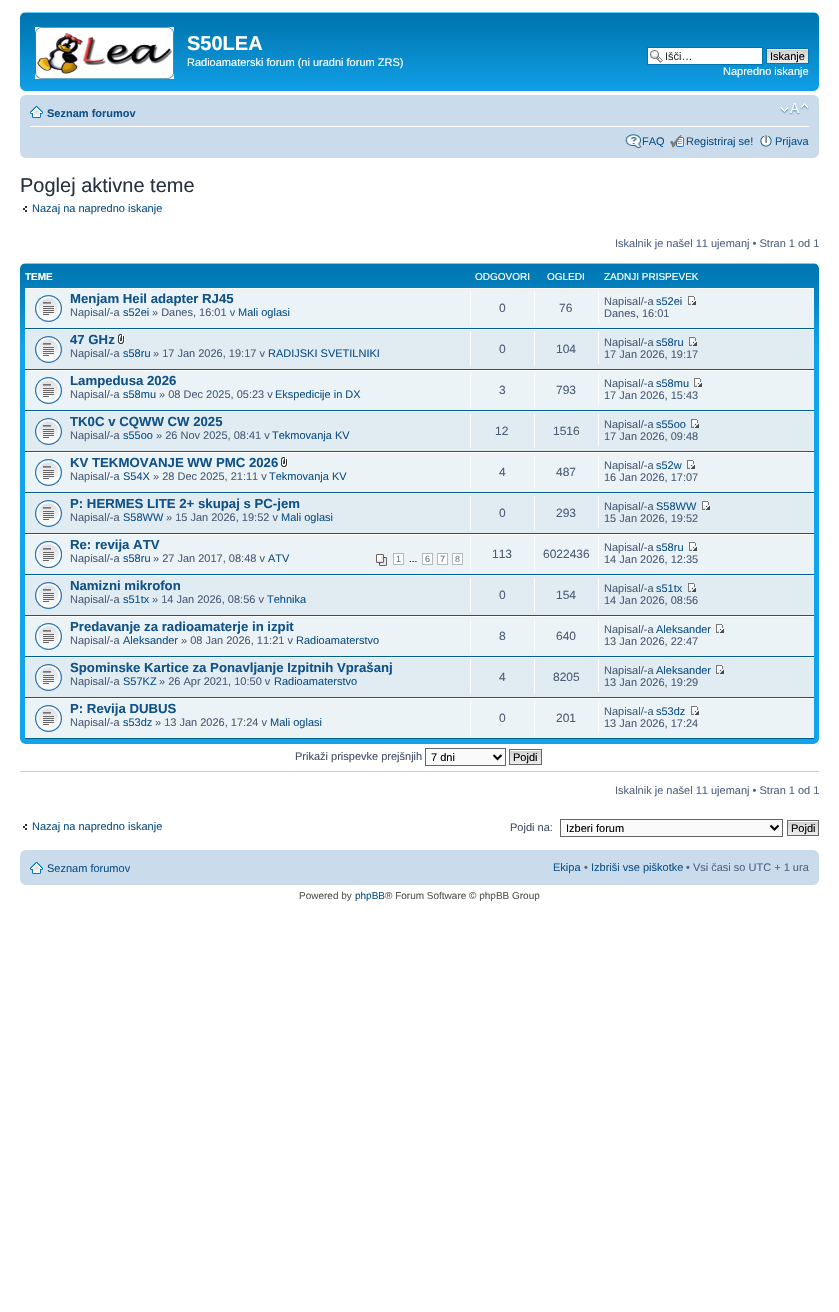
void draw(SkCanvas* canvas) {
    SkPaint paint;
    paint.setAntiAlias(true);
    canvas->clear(0xFFFFFFFF);
    canvas->drawImageRect(SkImages::DeferredFromEncodedData(SkData::MakeFromFileName("img1.png")), SkRect::MakeXYWH(20, 12, 799, 79), SkSamplingOptions());
    canvas->drawImageRect(SkImages::DeferredFromEncodedData(SkData::MakeFromFileName("img2.png")), SkRect::MakeXYWH(20, 12, 5, 5), SkSamplingOptions());
    canvas->drawImageRect(SkImages::DeferredFromEncodedData(SkData::MakeFromFileName("img3.png")), SkRect::MakeXYWH(814, 12, 5, 5), SkSamplingOptions());
    canvas->drawImageRect(SkImages::DeferredFromEncodedData(SkData::MakeFromFileName("img4.png")), SkRect::MakeXYWH(35, 27, 139, 52), SkSamplingOptions());
    SkFont font1(fontMgr->matchFamilyStyle("Liberation Sans", SkFontStyle::Bold()), 20);
    font1.setSubpixel(true);
    paint.setColor(0xFFFFFFFF);
    canvas->drawString("S50LEA", 187, 50, font1, paint);
    SkFont font2(fontMgr->matchFamilyStyle("Liberation Sans", SkFontStyle::Normal()), 11);
    font2.setSubpixel(true);
    canvas->drawString("Radioamaterski forum (ni uradni forum ZRS)", 187, 66, font2, paint);
    canvas->drawRect(SkRect::MakeXYWH(648, 48, 114, 16), paint);
    canvas->drawImageRect(SkImages::DeferredFromEncodedData(SkData::MakeFromFileName("img5.png")), SkRect::MakeXYWH(650, 50, 13, 13), SkSamplingOptions());
    paint.setStyle(SkPaint::kStroke_Style);
    paint.setStrokeWidth(1);
    paint.setColor(0xFF0075B0);
    canvas->drawRect(SkRect::MakeXYWH(647.5f, 47.5f, 115, 17), paint);
    paint.setStyle(SkPaint::kFill_Style);
    paint.setColor(0xFF333333);
    canvas->drawString("Išči…", 665, 60, font2, paint);
    canvas->drawImageRect(SkImages::DeferredFromEncodedData(SkData::MakeFromFileName("img6.png")), SkRect::MakeXYWH(767, 49, 41, 14), SkSamplingOptions());
    paint.setStyle(SkPaint::kStroke_Style);
    paint.setColor(0xFF0075B0);
    canvas->drawRect(SkRect::MakeXYWH(766.5f, 48.5f, 42, 15), paint);
    paint.setStyle(SkPaint::kFill_Style);
    paint.setColor(0xFF000000);
    canvas->drawString("Iskanje", 770, 60, font2, paint);
    paint.setColor(0xFFFFFFFF);
    canvas->drawString("Napredno iskanje", 723, 75, font2, paint);
    canvas->drawImageRect(SkImages::DeferredFromEncodedData(SkData::MakeFromFileName("img7.png")), SkRect::MakeXYWH(20, 86, 5, 5), SkSamplingOptions());
    canvas->drawImageRect(SkImages::DeferredFromEncodedData(SkData::MakeFromFileName("img8.png")), SkRect::MakeXYWH(814, 86, 5, 5), SkSamplingOptions());
    paint.setColor(0xFFCADCEB);
    canvas->drawRect(SkRect::MakeXYWH(20, 95, 799, 63), paint);
    canvas->drawImageRect(SkImages::DeferredFromEncodedData(SkData::MakeFromFileName("img9.png")), SkRect::MakeXYWH(20, 95, 5, 5), SkSamplingOptions());
    canvas->drawImageRect(SkImages::DeferredFromEncodedData(SkData::MakeFromFileName("img10.png")), SkRect::MakeXYWH(814, 95, 5, 5), SkSamplingOptions());
    paint.setColor(0xFFFFFFFF);
    canvas->drawRect(SkRect::MakeXYWH(30, 126, 779, 1), paint);
    canvas->drawImageRect(SkImages::DeferredFromEncodedData(SkData::MakeFromFileName("img11.png")), SkRect::MakeXYWH(30, 106, 13, 12), SkSamplingOptions());
    SkFont font3(fontMgr->matchFamilyStyle("Liberation Sans", SkFontStyle::Bold()), 11);
    font3.setSubpixel(true);
    paint.setColor(0xFF105289);
    canvas->drawString("Seznam forumov", 47, 117, font3, paint);
    canvas->drawImageRect(SkImages::DeferredFromEncodedData(SkData::MakeFromFileName("img12.png")), SkRect::MakeXYWH(780, 103, 29, 12), SkSamplingOptions());
    canvas->drawImageRect(SkImages::DeferredFromEncodedData(SkData::MakeFromFileName("img13.png")), SkRect::MakeXYWH(625, 134, 17, 14), SkSamplingOptions());
    canvas->drawString("FAQ", 642, 145, font2, paint);
    canvas->drawImageRect(SkImages::DeferredFromEncodedData(SkData::MakeFromFileName("img14.png")), SkRect::MakeXYWH(670, 135, 14, 13), SkSamplingOptions());
    canvas->drawString("Registriraj se!", 686, 145, font2, paint);
    canvas->drawImageRect(SkImages::DeferredFromEncodedData(SkData::MakeFromFileName("img15.png")), SkRect::MakeXYWH(760, 135, 12, 12), SkSamplingOptions());
    canvas->drawString("Prijava", 775, 145, font2, paint);
    canvas->drawImageRect(SkImages::DeferredFromEncodedData(SkData::MakeFromFileName("img16.png")), SkRect::MakeXYWH(20, 153, 5, 5), SkSamplingOptions());
    canvas->drawImageRect(SkImages::DeferredFromEncodedData(SkData::MakeFromFileName("img17.png")), SkRect::MakeXYWH(814, 153, 5, 5), SkSamplingOptions());
    SkFont font4(fontMgr->matchFamilyStyle("Liberation Sans", SkFontStyle::Normal()), 20);
    font4.setSubpixel(true);
    paint.setColor(0xFF28313F);
    canvas->drawString("Poglej aktivne teme", 20, 192, font4, paint);
    canvas->drawImageRect(SkImages::DeferredFromEncodedData(SkData::MakeFromFileName("img18.png")), SkRect::MakeXYWH(23, 206, 4, 6), SkSamplingOptions());
    paint.setColor(0xFF105289);
    canvas->drawString("Nazaj na napredno iskanje", 32, 212, font2, paint);
    paint.setColor(0xFF536482);
    canvas->drawString("Iskalnik je našel 11 ujemanj • Stran 1 od 1", 615, 247, font2, paint);
    paint.setColor(0xFF12A3EB);
    canvas->drawRect(SkRect::MakeXYWH(20, 345, 799, 399), paint);
    canvas->drawImageRect(SkImages::DeferredFromEncodedData(SkData::MakeFromFileName("img19.png")), SkRect::MakeXYWH(20, 263, 799, 82), SkSamplingOptions());
    canvas->drawImageRect(SkImages::DeferredFromEncodedData(SkData::MakeFromFileName("img2.png")), SkRect::MakeXYWH(20, 263, 5, 5), SkSamplingOptions());
    canvas->drawImageRect(SkImages::DeferredFromEncodedData(SkData::MakeFromFileName("img3.png")), SkRect::MakeXYWH(814, 263, 5, 5), SkSamplingOptions());
    SkFont font5(fontMgr->matchFamilyStyle("Liberation Sans", SkFontStyle::Bold()), 10);
    font5.setSubpixel(true);
    paint.setColor(0xFFFFFFFF);
    canvas->drawString("TEME", 25, 280, font5, paint);
    SkFont font6(fontMgr->matchFamilyStyle("Liberation Sans", SkFontStyle::Normal()), 10);
    font6.setSubpixel(true);
    canvas->drawString("ODGOVORI", 475, 280, font6, paint);
    canvas->drawString("OGLEDI", 547, 280, font6, paint);
    canvas->drawString("ZADNJI PRISPEVEK", 604, 280, font6, paint);
    paint.setColor(0xFFECF3F7);
    canvas->drawRect(SkRect::MakeXYWH(25, 289, 789, 39), paint);
    paint.setColor(0xFFFFFFFF);
    canvas->drawRect(SkRect::MakeXYWH(25, 288, 789, 1), paint);
    paint.setColor(0xFF00608F);
    canvas->drawRect(SkRect::MakeXYWH(25, 328, 789, 1), paint);
    canvas->drawImageRect(SkImages::DeferredFromEncodedData(SkData::MakeFromFileName("img20.png")), SkRect::MakeXYWH(35, 295, 27, 27), SkSamplingOptions());
    SkFont font7(fontMgr->matchFamilyStyle("Liberation Sans", SkFontStyle::Bold()), 13.2f);
    font7.setSubpixel(true);
    paint.setColor(0xFF105289);
    canvas->drawString("Menjam Heil adapter RJ45", 70, 303, font7, paint);
    paint.setColor(0xFF4C5D77);
    canvas->drawString("Napisal/-a", 70, 316, font2, paint);
    paint.setColor(0xFF105289);
    canvas->drawString("s52ei", 123, 316, font2, paint);
    paint.setColor(0xFF4C5D77);
    canvas->drawString("» Danes, 16:01 v", 152, 316, font2, paint);
    paint.setColor(0xFF105289);
    canvas->drawString("Mali oglasi", 238, 316, font2, paint);
    paint.setColor(0xFFFFFFFF);
    canvas->drawRect(SkRect::MakeXYWH(470, 291, 1, 34), paint);
    SkFont font8(fontMgr->matchFamilyStyle("Liberation Sans", SkFontStyle::Normal()), 12);
    font8.setSubpixel(true);
    paint.setColor(0xFF4C5D77);
    canvas->drawString("0", 499, 312, font8, paint);
    paint.setColor(0xFFFFFFFF);
    canvas->drawRect(SkRect::MakeXYWH(534, 291, 1, 34), paint);
    paint.setColor(0xFF4C5D77);
    canvas->drawString("76", 559, 312, font8, paint);
    paint.setColor(0xFFFFFFFF);
    canvas->drawRect(SkRect::MakeXYWH(598, 291, 1, 32), paint);
    paint.setColor(0xFF4C5D77);
    canvas->drawString("Napisal/-a", 604, 305, font2, paint);
    paint.setColor(0xFF105289);
    canvas->drawString("s52ei", 656, 305, font2, paint);
    canvas->drawImageRect(SkImages::DeferredFromEncodedData(SkData::MakeFromFileName("img21.png")), SkRect::MakeXYWH(688, 296, 8, 9), SkSamplingOptions());
    paint.setColor(0xFF4C5D77);
    canvas->drawString("Danes, 16:01", 604, 317, font2, paint);
    paint.setColor(0xFFE1EBF2);
    canvas->drawRect(SkRect::MakeXYWH(25, 330, 789, 39), paint);
    paint.setColor(0xFFFFFFFF);
    canvas->drawRect(SkRect::MakeXYWH(25, 329, 789, 1), paint);
    paint.setColor(0xFF00608F);
    canvas->drawRect(SkRect::MakeXYWH(25, 369, 789, 1), paint);
    canvas->drawImageRect(SkImages::DeferredFromEncodedData(SkData::MakeFromFileName("img22.png")), SkRect::MakeXYWH(35, 336, 27, 27), SkSamplingOptions());
    paint.setColor(0xFF105289);
    canvas->drawString("47 GHz", 70, 344, font7, paint);
    canvas->drawImageRect(SkImages::DeferredFromEncodedData(SkData::MakeFromFileName("img23.png")), SkRect::MakeXYWH(118, 334, 7, 10), SkSamplingOptions());
    paint.setColor(0xFF4C5D77);
    canvas->drawString("Napisal/-a", 70, 357, font2, paint);
    paint.setColor(0xFF105289);
    canvas->drawString("s58ru", 123, 357, font2, paint);
    paint.setColor(0xFF4C5D77);
    canvas->drawString("» 17 Jan 2026, 19:17 v", 153, 357, font2, paint);
    paint.setColor(0xFF105289);
    canvas->drawString("RADIJSKI SVETILNIKI", 268, 357, font2, paint);
    paint.setColor(0xFFFFFFFF);
    canvas->drawRect(SkRect::MakeXYWH(470, 332, 1, 34), paint);
    paint.setColor(0xFF4C5D77);
    canvas->drawString("0", 499, 353, font8, paint);
    paint.setColor(0xFFFFFFFF);
    canvas->drawRect(SkRect::MakeXYWH(534, 332, 1, 34), paint);
    paint.setColor(0xFF4C5D77);
    canvas->drawString("104", 556, 353, font8, paint);
    paint.setColor(0xFFFFFFFF);
    canvas->drawRect(SkRect::MakeXYWH(598, 332, 1, 32), paint);
    paint.setColor(0xFF4C5D77);
    canvas->drawString("Napisal/-a", 604, 346, font2, paint);
    paint.setColor(0xFF105289);
    canvas->drawString("s58ru", 656, 346, font2, paint);
    canvas->drawImageRect(SkImages::DeferredFromEncodedData(SkData::MakeFromFileName("img24.png")), SkRect::MakeXYWH(689, 337, 8, 9), SkSamplingOptions());
    paint.setColor(0xFF4C5D77);
    canvas->drawString("17 Jan 2026, 19:17", 604, 358, font2, paint);
    paint.setColor(0xFFECF3F7);
    canvas->drawRect(SkRect::MakeXYWH(25, 371, 789, 39), paint);
    paint.setColor(0xFFFFFFFF);
    canvas->drawRect(SkRect::MakeXYWH(25, 370, 789, 1), paint);
    paint.setColor(0xFF00608F);
    canvas->drawRect(SkRect::MakeXYWH(25, 410, 789, 1), paint);
    canvas->drawImageRect(SkImages::DeferredFromEncodedData(SkData::MakeFromFileName("img20.png")), SkRect::MakeXYWH(35, 377, 27, 27), SkSamplingOptions());
    paint.setColor(0xFF105289);
    canvas->drawString("Lampedusa 2026", 70, 385, font7, paint);
    paint.setColor(0xFF4C5D77);
    canvas->drawString("Napisal/-a", 70, 398, font2, paint);
    paint.setColor(0xFF105289);
    canvas->drawString("s58mu", 123, 398, font2, paint);
    paint.setColor(0xFF4C5D77);
    canvas->drawString("» 08 Dec 2025, 05:23 v", 159, 398, font2, paint);
    paint.setColor(0xFF105289);
    canvas->drawString("Ekspedicije in DX", 275, 398, font2, paint);
    paint.setColor(0xFFFFFFFF);
    canvas->drawRect(SkRect::MakeXYWH(470, 373, 1, 34), paint);
    paint.setColor(0xFF4C5D77);
    canvas->drawString("3", 499, 394, font8, paint);
    paint.setColor(0xFFFFFFFF);
    canvas->drawRect(SkRect::MakeXYWH(534, 373, 1, 34), paint);
    paint.setColor(0xFF4C5D77);
    canvas->drawString("793", 556, 394, font8, paint);
    paint.setColor(0xFFFFFFFF);
    canvas->drawRect(SkRect::MakeXYWH(598, 373, 1, 32), paint);
    paint.setColor(0xFF4C5D77);
    canvas->drawString("Napisal/-a", 604, 387, font2, paint);
    paint.setColor(0xFF105289);
    canvas->drawString("s58mu", 656, 387, font2, paint);
    canvas->drawImageRect(SkImages::DeferredFromEncodedData(SkData::MakeFromFileName("img21.png")), SkRect::MakeXYWH(694, 378, 8, 9), SkSamplingOptions());
    paint.setColor(0xFF4C5D77);
    canvas->drawString("17 Jan 2026, 15:43", 604, 399, font2, paint);
    paint.setColor(0xFFE1EBF2);
    canvas->drawRect(SkRect::MakeXYWH(25, 412, 789, 39), paint);
    paint.setColor(0xFFFFFFFF);
    canvas->drawRect(SkRect::MakeXYWH(25, 411, 789, 1), paint);
    paint.setColor(0xFF00608F);
    canvas->drawRect(SkRect::MakeXYWH(25, 451, 789, 1), paint);
    canvas->drawImageRect(SkImages::DeferredFromEncodedData(SkData::MakeFromFileName("img22.png")), SkRect::MakeXYWH(35, 418, 27, 27), SkSamplingOptions());
    paint.setColor(0xFF105289);
    canvas->drawString("TK0C v CQWW CW 2025", 70, 426, font7, paint);
    paint.setColor(0xFF4C5D77);
    canvas->drawString("Napisal/-a", 70, 439, font2, paint);
    paint.setColor(0xFF105289);
    canvas->drawString("s55oo", 123, 439, font2, paint);
    paint.setColor(0xFF4C5D77);
    canvas->drawString("» 26 Nov 2025, 08:41 v", 156, 439, font2, paint);
    paint.setColor(0xFF105289);
    canvas->drawString("Tekmovanja KV", 272, 439, font2, paint);
    paint.setColor(0xFFFFFFFF);
    canvas->drawRect(SkRect::MakeXYWH(470, 414, 1, 34), paint);
    paint.setColor(0xFF4C5D77);
    canvas->drawString("12", 495, 435, font8, paint);
    paint.setColor(0xFFFFFFFF);
    canvas->drawRect(SkRect::MakeXYWH(534, 414, 1, 34), paint);
    paint.setColor(0xFF4C5D77);
    canvas->drawString("1516", 553, 435, font8, paint);
    paint.setColor(0xFFFFFFFF);
    canvas->drawRect(SkRect::MakeXYWH(598, 414, 1, 32), paint);
    paint.setColor(0xFF4C5D77);
    canvas->drawString("Napisal/-a", 604, 428, font2, paint);
    paint.setColor(0xFF105289);
    canvas->drawString("s55oo", 656, 428, font2, paint);
    canvas->drawImageRect(SkImages::DeferredFromEncodedData(SkData::MakeFromFileName("img24.png")), SkRect::MakeXYWH(691, 419, 8, 9), SkSamplingOptions());
    paint.setColor(0xFF4C5D77);
    canvas->drawString("17 Jan 2026, 09:48", 604, 440, font2, paint);
    paint.setColor(0xFFECF3F7);
    canvas->drawRect(SkRect::MakeXYWH(25, 453, 789, 39), paint);
    paint.setColor(0xFFFFFFFF);
    canvas->drawRect(SkRect::MakeXYWH(25, 452, 789, 1), paint);
    paint.setColor(0xFF00608F);
    canvas->drawRect(SkRect::MakeXYWH(25, 492, 789, 1), paint);
    canvas->drawImageRect(SkImages::DeferredFromEncodedData(SkData::MakeFromFileName("img20.png")), SkRect::MakeXYWH(35, 459, 27, 27), SkSamplingOptions());
    paint.setColor(0xFF105289);
    canvas->drawString("KV TEKMOVANJE WW PMC 2026", 70, 467, font7, paint);
    canvas->drawImageRect(SkImages::DeferredFromEncodedData(SkData::MakeFromFileName("img25.png")), SkRect::MakeXYWH(281, 457, 7, 10), SkSamplingOptions());
    paint.setColor(0xFF4C5D77);
    canvas->drawString("Napisal/-a", 70, 480, font2, paint);
    paint.setColor(0xFF105289);
    canvas->drawString("S54X", 123, 480, font2, paint);
    paint.setColor(0xFF4C5D77);
    canvas->drawString("» 28 Dec 2025, 21:11 v", 153, 480, font2, paint);
    paint.setColor(0xFF105289);
    canvas->drawString("Tekmovanja KV", 269, 480, font2, paint);
    paint.setColor(0xFFFFFFFF);
    canvas->drawRect(SkRect::MakeXYWH(470, 455, 1, 34), paint);
    paint.setColor(0xFF4C5D77);
    canvas->drawString("4", 499, 476, font8, paint);
    paint.setColor(0xFFFFFFFF);
    canvas->drawRect(SkRect::MakeXYWH(534, 455, 1, 34), paint);
    paint.setColor(0xFF4C5D77);
    canvas->drawString("487", 556, 476, font8, paint);
    paint.setColor(0xFFFFFFFF);
    canvas->drawRect(SkRect::MakeXYWH(598, 455, 1, 32), paint);
    paint.setColor(0xFF4C5D77);
    canvas->drawString("Napisal/-a", 604, 469, font2, paint);
    paint.setColor(0xFF105289);
    canvas->drawString("s52w", 656, 469, font2, paint);
    canvas->drawImageRect(SkImages::DeferredFromEncodedData(SkData::MakeFromFileName("img21.png")), SkRect::MakeXYWH(687, 460, 8, 9), SkSamplingOptions());
    paint.setColor(0xFF4C5D77);
    canvas->drawString("16 Jan 2026, 17:07", 604, 481, font2, paint);
    paint.setColor(0xFFE1EBF2);
    canvas->drawRect(SkRect::MakeXYWH(25, 494, 789, 39), paint);
    paint.setColor(0xFFFFFFFF);
    canvas->drawRect(SkRect::MakeXYWH(25, 493, 789, 1), paint);
    paint.setColor(0xFF00608F);
    canvas->drawRect(SkRect::MakeXYWH(25, 533, 789, 1), paint);
    canvas->drawImageRect(SkImages::DeferredFromEncodedData(SkData::MakeFromFileName("img22.png")), SkRect::MakeXYWH(35, 500, 27, 27), SkSamplingOptions());
    paint.setColor(0xFF105289);
    canvas->drawString("P: HERMES LITE 2+ skupaj s PC-jem", 70, 508, font7, paint);
    paint.setColor(0xFF4C5D77);
    canvas->drawString("Napisal/-a", 70, 521, font2, paint);
    paint.setColor(0xFF105289);
    canvas->drawString("S58WW", 123, 521, font2, paint);
    paint.setColor(0xFF4C5D77);
    canvas->drawString("» 15 Jan 2026, 19:52 v", 166, 521, font2, paint);
    paint.setColor(0xFF105289);
    canvas->drawString("Mali oglasi", 281, 521, font2, paint);
    paint.setColor(0xFFFFFFFF);
    canvas->drawRect(SkRect::MakeXYWH(470, 496, 1, 34), paint);
    paint.setColor(0xFF4C5D77);
    canvas->drawString("0", 499, 517, font8, paint);
    paint.setColor(0xFFFFFFFF);
    canvas->drawRect(SkRect::MakeXYWH(534, 496, 1, 34), paint);
    paint.setColor(0xFF4C5D77);
    canvas->drawString("293", 556, 517, font8, paint);
    paint.setColor(0xFFFFFFFF);
    canvas->drawRect(SkRect::MakeXYWH(598, 496, 1, 32), paint);
    paint.setColor(0xFF4C5D77);
    canvas->drawString("Napisal/-a", 604, 510, font2, paint);
    paint.setColor(0xFF105289);
    canvas->drawString("S58WW", 656, 510, font2, paint);
    canvas->drawImageRect(SkImages::DeferredFromEncodedData(SkData::MakeFromFileName("img24.png")), SkRect::MakeXYWH(702, 501, 8, 9), SkSamplingOptions());
    paint.setColor(0xFF4C5D77);
    canvas->drawString("15 Jan 2026, 19:52", 604, 522, font2, paint);
    paint.setColor(0xFFECF3F7);
    canvas->drawRect(SkRect::MakeXYWH(25, 535, 789, 39), paint);
    paint.setColor(0xFFFFFFFF);
    canvas->drawRect(SkRect::MakeXYWH(25, 534, 789, 1), paint);
    paint.setColor(0xFF00608F);
    canvas->drawRect(SkRect::MakeXYWH(25, 574, 789, 1), paint);
    canvas->drawImageRect(SkImages::DeferredFromEncodedData(SkData::MakeFromFileName("img26.png")), SkRect::MakeXYWH(35, 541, 27, 27), SkSamplingOptions());
    paint.setColor(0xFF105289);
    canvas->drawString("Re: revija ATV", 70, 549, font7, paint);
    paint.setColor(0xFF4C5D77);
    canvas->drawString("Napisal/-a", 70, 562, font2, paint);
    paint.setColor(0xFF105289);
    canvas->drawString("s58ru", 123, 562, font2, paint);
    paint.setColor(0xFF4C5D77);
    canvas->drawString("» 27 Jan 2017, 08:48 v", 153, 562, font2, paint);
    paint.setColor(0xFF105289);
    canvas->drawString("ATV", 268, 562, font2, paint);
    canvas->drawImageRect(SkImages::DeferredFromEncodedData(SkData::MakeFromFileName("img27.png")), SkRect::MakeXYWH(376, 554, 11, 12), SkSamplingOptions());
    paint.setColor(0xFFFFFFFF);
    canvas->drawRect(SkRect::MakeXYWH(393.5f, 553.5f, 10, 11), paint);
    paint.setStyle(SkPaint::kStroke_Style);
    paint.setColor(0xFFB4BAC0);
    canvas->drawRect(SkRect::MakeXYWH(393.5f, 553.5f, 10, 11), paint);
    SkFont font9(fontMgr->matchFamilyStyle("Liberation Sans", SkFontStyle::Normal()), 9);
    font9.setSubpixel(true);
    paint.setStyle(SkPaint::kFill_Style);
    paint.setColor(0xFF5C758C);
    canvas->drawString("1", 396, 562, font9, paint);
    paint.setColor(0xFF000000);
    canvas->drawString("...", 409, 562, font6, paint);
    paint.setColor(0xFFFFFFFF);
    canvas->drawRect(SkRect::MakeXYWH(422.5f, 553.5f, 10, 11), paint);
    paint.setStyle(SkPaint::kStroke_Style);
    paint.setColor(0xFFB4BAC0);
    canvas->drawRect(SkRect::MakeXYWH(422.5f, 553.5f, 10, 11), paint);
    paint.setStyle(SkPaint::kFill_Style);
    paint.setColor(0xFF5C758C);
    canvas->drawString("6", 425, 562, font9, paint);
    paint.setColor(0xFFFFFFFF);
    canvas->drawRect(SkRect::MakeXYWH(437.5f, 553.5f, 10, 11), paint);
    paint.setStyle(SkPaint::kStroke_Style);
    paint.setColor(0xFFB4BAC0);
    canvas->drawRect(SkRect::MakeXYWH(437.5f, 553.5f, 10, 11), paint);
    paint.setStyle(SkPaint::kFill_Style);
    paint.setColor(0xFF5C758C);
    canvas->drawString("7", 440, 562, font9, paint);
    paint.setColor(0xFFFFFFFF);
    canvas->drawRect(SkRect::MakeXYWH(452.5f, 553.5f, 10, 11), paint);
    paint.setStyle(SkPaint::kStroke_Style);
    paint.setColor(0xFFB4BAC0);
    canvas->drawRect(SkRect::MakeXYWH(452.5f, 553.5f, 10, 11), paint);
    paint.setStyle(SkPaint::kFill_Style);
    paint.setColor(0xFF5C758C);
    canvas->drawString("8", 455, 562, font9, paint);
    paint.setColor(0xFFFFFFFF);
    canvas->drawRect(SkRect::MakeXYWH(470, 537, 1, 34), paint);
    paint.setColor(0xFF4C5D77);
    canvas->drawString("113", 492, 558, font8, paint);
    paint.setColor(0xFFFFFFFF);
    canvas->drawRect(SkRect::MakeXYWH(534, 537, 1, 34), paint);
    paint.setColor(0xFF4C5D77);
    canvas->drawString("6022436", 543, 558, font8, paint);
    paint.setColor(0xFFFFFFFF);
    canvas->drawRect(SkRect::MakeXYWH(598, 537, 1, 32), paint);
    paint.setColor(0xFF4C5D77);
    canvas->drawString("Napisal/-a", 604, 551, font2, paint);
    paint.setColor(0xFF105289);
    canvas->drawString("s58ru", 656, 551, font2, paint);
    canvas->drawImageRect(SkImages::DeferredFromEncodedData(SkData::MakeFromFileName("img21.png")), SkRect::MakeXYWH(689, 542, 8, 9), SkSamplingOptions());
    paint.setColor(0xFF4C5D77);
    canvas->drawString("14 Jan 2026, 12:35", 604, 563, font2, paint);
    paint.setColor(0xFFE1EBF2);
    canvas->drawRect(SkRect::MakeXYWH(25, 576, 789, 39), paint);
    paint.setColor(0xFFFFFFFF);
    canvas->drawRect(SkRect::MakeXYWH(25, 575, 789, 1), paint);
    paint.setColor(0xFF00608F);
    canvas->drawRect(SkRect::MakeXYWH(25, 615, 789, 1), paint);
    canvas->drawImageRect(SkImages::DeferredFromEncodedData(SkData::MakeFromFileName("img22.png")), SkRect::MakeXYWH(35, 582, 27, 27), SkSamplingOptions());
    paint.setColor(0xFF105289);
    canvas->drawString("Namizni mikrofon", 70, 590, font7, paint);
    paint.setColor(0xFF4C5D77);
    canvas->drawString("Napisal/-a", 70, 603, font2, paint);
    paint.setColor(0xFF105289);
    canvas->drawString("s51tx", 123, 603, font2, paint);
    paint.setColor(0xFF4C5D77);
    canvas->drawString("» 14 Jan 2026, 08:56 v", 152, 603, font2, paint);
    paint.setColor(0xFF105289);
    canvas->drawString("Tehnika", 267, 603, font2, paint);
    paint.setColor(0xFFFFFFFF);
    canvas->drawRect(SkRect::MakeXYWH(470, 578, 1, 34), paint);
    paint.setColor(0xFF4C5D77);
    canvas->drawString("0", 499, 599, font8, paint);
    paint.setColor(0xFFFFFFFF);
    canvas->drawRect(SkRect::MakeXYWH(534, 578, 1, 34), paint);
    paint.setColor(0xFF4C5D77);
    canvas->drawString("154", 556, 599, font8, paint);
    paint.setColor(0xFFFFFFFF);
    canvas->drawRect(SkRect::MakeXYWH(598, 578, 1, 32), paint);
    paint.setColor(0xFF4C5D77);
    canvas->drawString("Napisal/-a", 604, 592, font2, paint);
    paint.setColor(0xFF105289);
    canvas->drawString("s51tx", 656, 592, font2, paint);
    canvas->drawImageRect(SkImages::DeferredFromEncodedData(SkData::MakeFromFileName("img24.png")), SkRect::MakeXYWH(688, 583, 8, 9), SkSamplingOptions());
    paint.setColor(0xFF4C5D77);
    canvas->drawString("14 Jan 2026, 08:56", 604, 604, font2, paint);
    paint.setColor(0xFFECF3F7);
    canvas->drawRect(SkRect::MakeXYWH(25, 617, 789, 39), paint);
    paint.setColor(0xFFFFFFFF);
    canvas->drawRect(SkRect::MakeXYWH(25, 616, 789, 1), paint);
    paint.setColor(0xFF00608F);
    canvas->drawRect(SkRect::MakeXYWH(25, 656, 789, 1), paint);
    canvas->drawImageRect(SkImages::DeferredFromEncodedData(SkData::MakeFromFileName("img20.png")), SkRect::MakeXYWH(35, 623, 27, 27), SkSamplingOptions());
    paint.setColor(0xFF105289);
    canvas->drawString("Predavanje za radioamaterje in izpit", 70, 631, font7, paint);
    paint.setColor(0xFF4C5D77);
    canvas->drawString("Napisal/-a", 70, 644, font2, paint);
    paint.setColor(0xFF105289);
    canvas->drawString("Aleksander", 123, 644, font2, paint);
    paint.setColor(0xFF4C5D77);
    canvas->drawString("» 08 Jan 2026, 11:21 v", 181, 644, font2, paint);
    paint.setColor(0xFF105289);
    canvas->drawString("Radioamaterstvo", 296, 644, font2, paint);
    paint.setColor(0xFFFFFFFF);
    canvas->drawRect(SkRect::MakeXYWH(470, 619, 1, 34), paint);
    paint.setColor(0xFF4C5D77);
    canvas->drawString("8", 499, 640, font8, paint);
    paint.setColor(0xFFFFFFFF);
    canvas->drawRect(SkRect::MakeXYWH(534, 619, 1, 34), paint);
    paint.setColor(0xFF4C5D77);
    canvas->drawString("640", 556, 640, font8, paint);
    paint.setColor(0xFFFFFFFF);
    canvas->drawRect(SkRect::MakeXYWH(598, 619, 1, 32), paint);
    paint.setColor(0xFF4C5D77);
    canvas->drawString("Napisal/-a", 604, 633, font2, paint);
    paint.setColor(0xFF105289);
    canvas->drawString("Aleksander", 656, 633, font2, paint);
    canvas->drawImageRect(SkImages::DeferredFromEncodedData(SkData::MakeFromFileName("img21.png")), SkRect::MakeXYWH(716, 624, 8, 9), SkSamplingOptions());
    paint.setColor(0xFF4C5D77);
    canvas->drawString("13 Jan 2026, 22:47", 604, 645, font2, paint);
    paint.setColor(0xFFE1EBF2);
    canvas->drawRect(SkRect::MakeXYWH(25, 658, 789, 39), paint);
    paint.setColor(0xFFFFFFFF);
    canvas->drawRect(SkRect::MakeXYWH(25, 657, 789, 1), paint);
    paint.setColor(0xFF00608F);
    canvas->drawRect(SkRect::MakeXYWH(25, 697, 789, 1), paint);
    canvas->drawImageRect(SkImages::DeferredFromEncodedData(SkData::MakeFromFileName("img22.png")), SkRect::MakeXYWH(35, 664, 27, 27), SkSamplingOptions());
    paint.setColor(0xFF105289);
    canvas->drawString("Spominske Kartice za Ponavljanje Izpitnih Vprašanj", 70, 672, font7, paint);
    paint.setColor(0xFF4C5D77);
    canvas->drawString("Napisal/-a", 70, 685, font2, paint);
    paint.setColor(0xFF105289);
    canvas->drawString("S57KZ", 123, 685, font2, paint);
    paint.setColor(0xFF4C5D77);
    canvas->drawString("» 26 Apr 2021, 10:50 v", 159, 685, font2, paint);
    paint.setColor(0xFF105289);
    canvas->drawString("Radioamaterstvo", 274, 685, font2, paint);
    paint.setColor(0xFFFFFFFF);
    canvas->drawRect(SkRect::MakeXYWH(470, 660, 1, 34), paint);
    paint.setColor(0xFF4C5D77);
    canvas->drawString("4", 499, 681, font8, paint);
    paint.setColor(0xFFFFFFFF);
    canvas->drawRect(SkRect::MakeXYWH(534, 660, 1, 34), paint);
    paint.setColor(0xFF4C5D77);
    canvas->drawString("8205", 553, 681, font8, paint);
    paint.setColor(0xFFFFFFFF);
    canvas->drawRect(SkRect::MakeXYWH(598, 660, 1, 32), paint);
    paint.setColor(0xFF4C5D77);
    canvas->drawString("Napisal/-a", 604, 674, font2, paint);
    paint.setColor(0xFF105289);
    canvas->drawString("Aleksander", 656, 674, font2, paint);
    canvas->drawImageRect(SkImages::DeferredFromEncodedData(SkData::MakeFromFileName("img24.png")), SkRect::MakeXYWH(716, 665, 8, 9), SkSamplingOptions());
    paint.setColor(0xFF4C5D77);
    canvas->drawString("13 Jan 2026, 19:29", 604, 686, font2, paint);
    paint.setColor(0xFFECF3F7);
    canvas->drawRect(SkRect::MakeXYWH(25, 699, 789, 39), paint);
    paint.setColor(0xFFFFFFFF);
    canvas->drawRect(SkRect::MakeXYWH(25, 698, 789, 1), paint);
    paint.setColor(0xFF00608F);
    canvas->drawRect(SkRect::MakeXYWH(25, 738, 789, 1), paint);
    canvas->drawImageRect(SkImages::DeferredFromEncodedData(SkData::MakeFromFileName("img20.png")), SkRect::MakeXYWH(35, 705, 27, 27), SkSamplingOptions());
    paint.setColor(0xFF105289);
    canvas->drawString("P: Revija DUBUS", 70, 713, font7, paint);
    paint.setColor(0xFF4C5D77);
    canvas->drawString("Napisal/-a", 70, 726, font2, paint);
    paint.setColor(0xFF105289);
    canvas->drawString("s53dz", 123, 726, font2, paint);
    paint.setColor(0xFF4C5D77);
    canvas->drawString("» 13 Jan 2026, 17:24 v", 155, 726, font2, paint);
    paint.setColor(0xFF105289);
    canvas->drawString("Mali oglasi", 270, 726, font2, paint);
    paint.setColor(0xFFFFFFFF);
    canvas->drawRect(SkRect::MakeXYWH(470, 701, 1, 34), paint);
    paint.setColor(0xFF4C5D77);
    canvas->drawString("0", 499, 722, font8, paint);
    paint.setColor(0xFFFFFFFF);
    canvas->drawRect(SkRect::MakeXYWH(534, 701, 1, 34), paint);
    paint.setColor(0xFF4C5D77);
    canvas->drawString("201", 556, 722, font8, paint);
    paint.setColor(0xFFFFFFFF);
    canvas->drawRect(SkRect::MakeXYWH(598, 701, 1, 32), paint);
    paint.setColor(0xFF4C5D77);
    canvas->drawString("Napisal/-a", 604, 715, font2, paint);
    paint.setColor(0xFF105289);
    canvas->drawString("s53dz", 656, 715, font2, paint);
    canvas->drawImageRect(SkImages::DeferredFromEncodedData(SkData::MakeFromFileName("img21.png")), SkRect::MakeXYWH(691, 706, 8, 9), SkSamplingOptions());
    paint.setColor(0xFF4C5D77);
    canvas->drawString("13 Jan 2026, 17:24", 604, 727, font2, paint);
    canvas->drawImageRect(SkImages::DeferredFromEncodedData(SkData::MakeFromFileName("img28.png")), SkRect::MakeXYWH(20, 739, 5, 5), SkSamplingOptions());
    canvas->drawImageRect(SkImages::DeferredFromEncodedData(SkData::MakeFromFileName("img29.png")), SkRect::MakeXYWH(814, 739, 5, 5), SkSamplingOptions());
    paint.setColor(0xFF425067);
    canvas->drawString("Prikaži prispevke prejšnjih", 295, 760, font2, paint);
    paint.setColor(0xFFFAFAFA);
    canvas->drawRect(SkRect::MakeXYWH(425.5f, 748.5f, 80, 17), paint);
    paint.setStyle(SkPaint::kStroke_Style);
    paint.setColor(0xFF666666);
    canvas->drawRect(SkRect::MakeXYWH(425.5f, 748.5f, 80, 17), paint);
    paint.setStrokeWidth(2);
    paint.setColor(0xFF000000);
    canvas->drawPath(SkPathBuilder().moveTo(493.5f, 755).lineTo(497.5f, 759).lineTo(501.5f, 755).detach(), paint);
    paint.setStyle(SkPaint::kFill_Style);
    canvas->drawString("7 dni", 431, 761, font2, paint);
    canvas->drawImageRect(SkImages::DeferredFromEncodedData(SkData::MakeFromFileName("img30.png")), SkRect::MakeXYWH(510, 750, 31, 14), SkSamplingOptions());
    paint.setStyle(SkPaint::kStroke_Style);
    paint.setStrokeWidth(1);
    paint.setColor(0xFF666666);
    canvas->drawRect(SkRect::MakeXYWH(509.5f, 749.5f, 32, 15), paint);
    paint.setStyle(SkPaint::kFill_Style);
    paint.setColor(0xFF000000);
    canvas->drawString("Pojdi", 513, 761, font2, paint);
    paint.setColor(0xFFCCCCCC);
    canvas->drawRect(SkRect::MakeXYWH(20, 771, 799, 1), paint);
    paint.setColor(0xFF536482);
    canvas->drawString("Iskalnik je našel 11 ujemanj • Stran 1 od 1", 615, 794, font2, paint);
    canvas->drawImageRect(SkImages::DeferredFromEncodedData(SkData::MakeFromFileName("img18.png")), SkRect::MakeXYWH(23, 824, 4, 6), SkSamplingOptions());
    paint.setColor(0xFF105289);
    canvas->drawString("Nazaj na napredno iskanje", 32, 830, font2, paint);
    paint.setColor(0xFF425067);
    canvas->drawString("Pojdi na:", 510, 831, font2, paint);
    paint.setColor(0xFFFAFAFA);
    canvas->drawRect(SkRect::MakeXYWH(560.5f, 819.5f, 222, 17), paint);
    paint.setStyle(SkPaint::kStroke_Style);
    paint.setColor(0xFF666666);
    canvas->drawRect(SkRect::MakeXYWH(560.5f, 819.5f, 222, 17), paint);
    paint.setStrokeWidth(2);
    paint.setColor(0xFF000000);
    canvas->drawPath(SkPathBuilder().moveTo(770.5f, 825.5f).lineTo(774.5f, 829.5f).lineTo(778.5f, 825.5f).detach(), paint);
    paint.setStyle(SkPaint::kFill_Style);
    canvas->drawString("Izberi forum", 566, 832, font2, paint);
    canvas->drawImageRect(SkImages::DeferredFromEncodedData(SkData::MakeFromFileName("img31.png")), SkRect::MakeXYWH(788, 821, 30, 14), SkSamplingOptions());
    paint.setStyle(SkPaint::kStroke_Style);
    paint.setStrokeWidth(1);
    paint.setColor(0xFF666666);
    canvas->drawRect(SkRect::MakeXYWH(787.5f, 820.5f, 31, 15), paint);
    paint.setStyle(SkPaint::kFill_Style);
    paint.setColor(0xFF000000);
    canvas->drawString("Pojdi", 791, 832, font2, paint);
    paint.setColor(0xFFCADCEB);
    canvas->drawRect(SkRect::MakeXYWH(20, 850, 799, 35), paint);
    canvas->drawImageRect(SkImages::DeferredFromEncodedData(SkData::MakeFromFileName("img9.png")), SkRect::MakeXYWH(20, 850, 5, 5), SkSamplingOptions());
    canvas->drawImageRect(SkImages::DeferredFromEncodedData(SkData::MakeFromFileName("img10.png")), SkRect::MakeXYWH(814, 850, 5, 5), SkSamplingOptions());
    canvas->drawImageRect(SkImages::DeferredFromEncodedData(SkData::MakeFromFileName("img11.png")), SkRect::MakeXYWH(30, 862, 13, 12), SkSamplingOptions());
    paint.setColor(0xFF105289);
    canvas->drawString("Seznam forumov", 47, 872, font2, paint);
    canvas->drawString("Ekipa", 553, 871, font2, paint);
    paint.setColor(0xFF536482);
    canvas->drawString("•", 584, 871, font2, paint);
    paint.setColor(0xFF105289);
    canvas->drawString("Izbriši vse piškotke", 591, 871, font2, paint);
    paint.setColor(0xFF536482);
    canvas->drawString("• Vsi časi so UTC + 1 ura", 686, 871, font2, paint);
    canvas->drawImageRect(SkImages::DeferredFromEncodedData(SkData::MakeFromFileName("img16.png")), SkRect::MakeXYWH(20, 880, 5, 5), SkSamplingOptions());
    canvas->drawImageRect(SkImages::DeferredFromEncodedData(SkData::MakeFromFileName("img17.png")), SkRect::MakeXYWH(814, 880, 5, 5), SkSamplingOptions());
    paint.setColor(0xFF555555);
    canvas->drawString("Powered by", 299, 899, font6, paint);
    paint.setColor(0xFF105289);
    canvas->drawString("phpBB", 355, 899, font6, paint);
    paint.setColor(0xFF555555);
    canvas->drawString("® Forum Software © phpBB Group", 385, 899, font6, paint);
}
